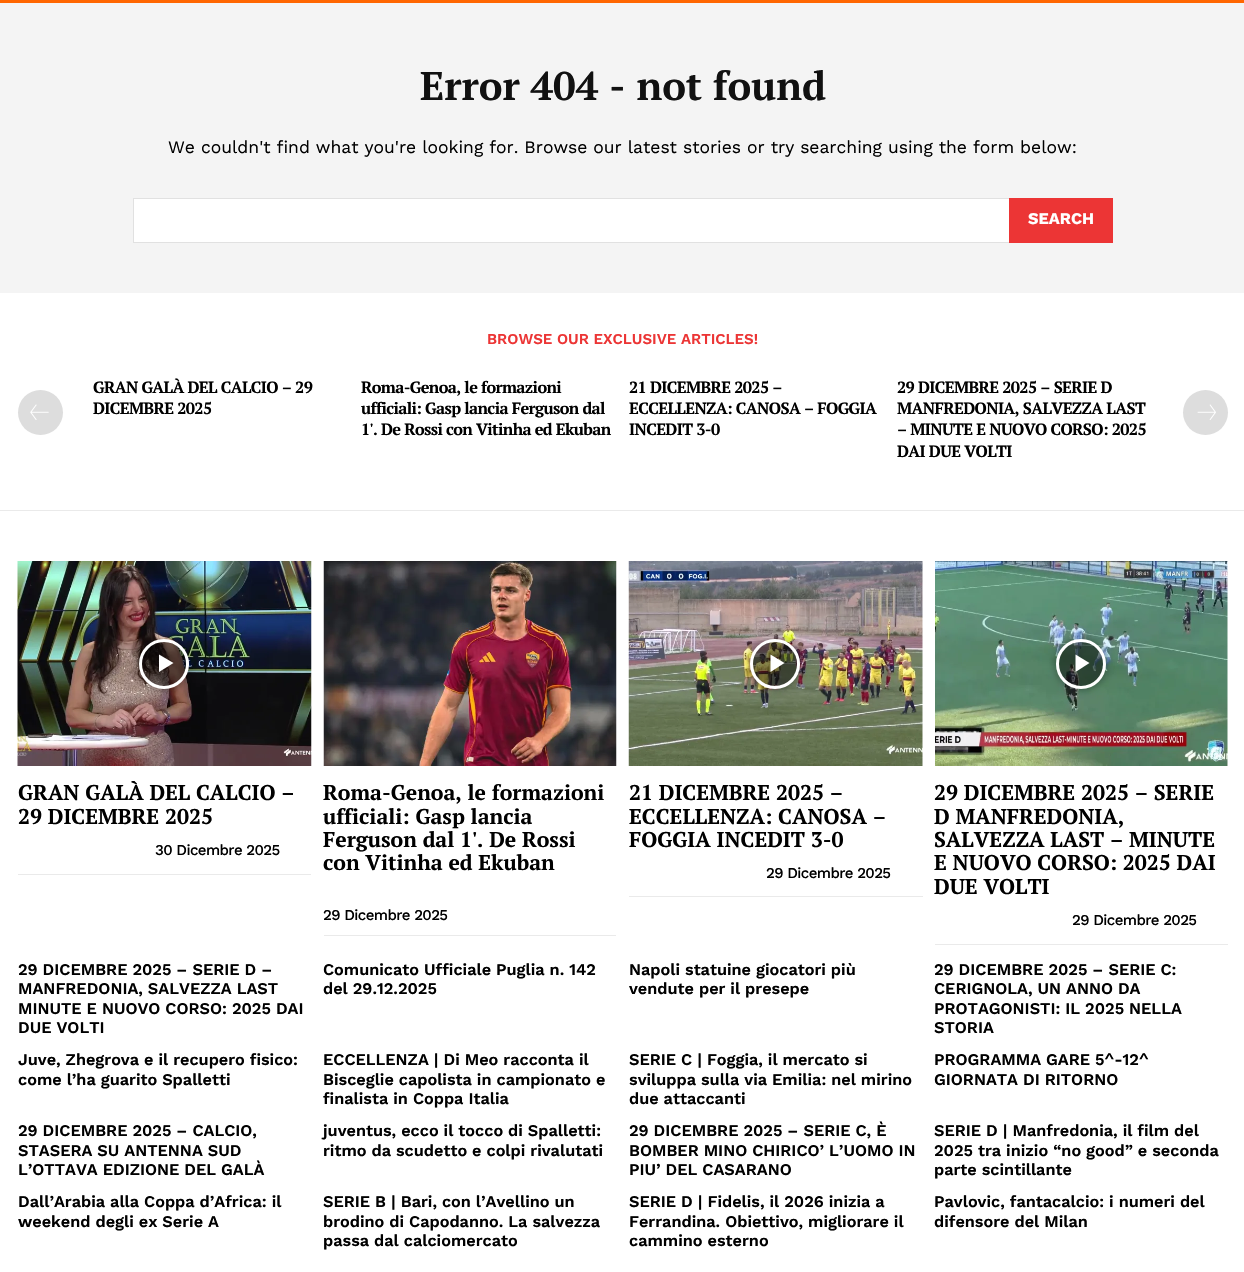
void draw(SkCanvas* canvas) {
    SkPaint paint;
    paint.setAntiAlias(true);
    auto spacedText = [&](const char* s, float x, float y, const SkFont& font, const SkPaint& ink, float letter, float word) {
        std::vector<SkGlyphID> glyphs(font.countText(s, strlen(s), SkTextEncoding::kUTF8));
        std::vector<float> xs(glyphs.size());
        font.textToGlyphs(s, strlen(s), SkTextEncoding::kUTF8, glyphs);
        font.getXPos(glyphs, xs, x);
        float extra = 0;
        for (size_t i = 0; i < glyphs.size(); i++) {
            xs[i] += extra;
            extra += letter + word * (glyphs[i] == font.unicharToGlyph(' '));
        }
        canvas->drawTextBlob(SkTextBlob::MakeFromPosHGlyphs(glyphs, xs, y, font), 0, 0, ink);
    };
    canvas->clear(0xFFFFFFFF);
    paint.setColor(0xFFFF6600);
    canvas->drawRect(SkRect::MakeXYWH(0, 0, 1244, 3), paint);
    paint.setColor(0xFFF4F4F4);
    canvas->drawRect(SkRect::MakeXYWH(0, 3, 1244, 290), paint);
    SkFont font1(fontMgr->matchFamilyStyle("PT Serif", SkFontStyle::Bold()), 40);
    font1.setSubpixel(true);
    paint.setColor(0xFF111111);
    canvas->drawString("Error 404 - not found", 420, 100, font1, paint);
    SkFont font2(fontMgr->matchFamilyStyle("Work Sans", SkFontStyle::Normal()), 17.5f);
    font2.setSubpixel(true);
    paint.setColor(0xFF000000);
    canvas->drawString("We couldn't find what you're looking for. Browse our latest stories or try searching using the form below:", 168, 153, font2, paint);
    paint.setColor(0xFFFFFFFF);
    canvas->drawRect(SkRect::MakeXYWH(134, 199, 875, 43), paint);
    paint.setStyle(SkPaint::kStroke_Style);
    paint.setStrokeWidth(1);
    paint.setColor(0xFFE1E1E1);
    canvas->drawRect(SkRect::MakeXYWH(133.5f, 198.5f, 979, 44), paint);
    paint.setStyle(SkPaint::kFill_Style);
    paint.setColor(0xFFEC3535);
    canvas->drawRect(SkRect::MakeXYWH(1009, 198, 104, 45), paint);
    SkFont font3(fontMgr->matchFamilyStyle("Work Sans", SkFontStyle::Bold()), 16.25f);
    font3.setSubpixel(true);
    paint.setColor(0xFFFFFFFF);
    canvas->drawString("SEARCH", 1028, 224, font3, paint);
    SkFont font4(fontMgr->matchFamilyStyle("Work Sans", SkFontStyle(600, SkFontStyle::kNormal_Width, SkFontStyle::kUpright_Slant)), 15);
    font4.setSubpixel(true);
    paint.setColor(0xFFEC3535);
    canvas->drawString("BROWSE OUR EXCLUSIVE ARTICLES!", 487, 344, font4, paint);
    SkFont font5(fontMgr->matchFamilyStyle("PT Serif", SkFontStyle::Bold()), 16.25f);
    font5.setSubpixel(true);
    paint.setColor(0xFF000000);
    spacedText("GRAN GALÀ DEL CALCIO – 29", 93, 393, font5, paint, -0.6f, 0);
    spacedText("DICEMBRE 2025", 93, 414, font5, paint, -0.6f, 0);
    spacedText("Roma-Genoa, le formazioni", 361, 393, font5, paint, -0.6f, 0);
    spacedText("ufficiali: Gasp lancia Ferguson dal", 361, 414, font5, paint, -0.6f, 0);
    spacedText("1'. De Rossi con Vitinha ed Ekuban", 361, 435, font5, paint, -0.6f, 0);
    spacedText("21 DICEMBRE 2025 –", 629, 393, font5, paint, -0.6f, 0);
    spacedText("ECCELLENZA: CANOSA – FOGGIA", 629, 414, font5, paint, -0.6f, 0);
    spacedText("INCEDIT 3-0", 629, 435, font5, paint, -0.6f, 0);
    spacedText("29 DICEMBRE 2025 – SERIE D", 897, 393, font5, paint, -0.6f, 0);
    spacedText("MANFREDONIA, SALVEZZA LAST", 897, 414, font5, paint, -0.6f, 0);
    spacedText("– MINUTE E NUOVO CORSO: 2025", 897, 435, font5, paint, -0.6f, 0);
    spacedText("DAI DUE VOLTI", 897, 457, font5, paint, -0.6f, 0);
    paint.setColor(0xFFDDDDDD);
    canvas->drawCircle(40.5f, 412.5f, 22.5f, paint);
    canvas->drawImageRect(SkImages::DeferredFromEncodedData(SkData::MakeFromFileName("img1.png")), SkRect::MakeXYWH(30, 404, 19, 16), SkSamplingOptions());
    canvas->drawCircle(1205.5f, 412.5f, 22.5f, paint);
    canvas->drawImageRect(SkImages::DeferredFromEncodedData(SkData::MakeFromFileName("img2.png")), SkRect::MakeXYWH(1197, 404, 19, 16), SkSamplingOptions());
    paint.setColor(0xFFEAEAEA);
    canvas->drawRect(SkRect::MakeXYWH(0, 510, 1244, 1), paint);
    canvas->drawRect(SkRect::MakeXYWH(18, 874, 293, 1), paint);
    canvas->drawImageRect(SkImages::DeferredFromEncodedData(SkData::MakeFromFileName("img3.png")), SkRect::MakeXYWH(17, 561, 295, 205), SkSamplingOptions());
    canvas->save();
    canvas->clipPath(SkPathBuilder(SkPathFillType::kEvenOdd).moveTo(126, 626).lineTo(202, 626).lineTo(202, 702).lineTo(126, 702).close().moveTo(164, 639).cubicTo(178, 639, 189, 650, 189, 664).cubicTo(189, 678, 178, 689, 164, 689).cubicTo(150, 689, 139, 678, 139, 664).cubicTo(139, 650, 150, 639, 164, 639).close().detach(), true);
    paint.setColor(0x66000000);
    paint.setMaskFilter(SkMaskFilter::MakeBlur(kNormal_SkBlurStyle, 4));
    canvas->drawRoundRect(SkRect::MakeXYWH(139, 639, 50, 50), 25, 25, paint);
    paint.setMaskFilter(nullptr);
    canvas->restore();
    paint.setColor(0x7A000000);
    canvas->drawCircle(164, 664, 23.5f, paint);
    paint.setStyle(SkPaint::kStroke_Style);
    paint.setStrokeWidth(3);
    paint.setColor(0xFFFFFFFF);
    canvas->drawCircle(164, 664, 23.5f, paint);
    paint.setStyle(SkPaint::kFill_Style);
    canvas->drawPath(SkPathBuilder().moveTo(159, 654.5f).lineTo(159, 672).lineTo(173.5f, 663).close().detach(), paint);
    SkFont font6(fontMgr->matchFamilyStyle("PT Serif", SkFontStyle::Bold()), 21.25f);
    font6.setSubpixel(true);
    paint.setColor(0xFF000000);
    canvas->drawString("GRAN GALÀ DEL CALCIO –", 18, 800, font6, paint);
    canvas->drawString("29 DICEMBRE 2025", 18, 824, font6, paint);
    SkFont font7(fontMgr->matchFamilyStyle("Work Sans", SkFontStyle(500, SkFontStyle::kNormal_Width, SkFontStyle::kUpright_Slant)), 15);
    font7.setSubpixel(true);
    spacedText("30 Dicembre 2025", 155, 855, font7, paint, -0.6f, 0);
    paint.setColor(0xFFEAEAEA);
    canvas->drawRect(SkRect::MakeXYWH(324, 935, 292, 1), paint);
    canvas->drawImageRect(SkImages::DeferredFromEncodedData(SkData::MakeFromFileName("img4.png")), SkRect::MakeXYWH(323, 561, 294, 205), SkSamplingOptions());
    paint.setColor(0xFF000000);
    canvas->drawString("Roma-Genoa, le formazioni", 323, 800, font6, paint);
    canvas->drawString("ufficiali: Gasp lancia", 323, 824, font6, paint);
    canvas->drawString("Ferguson dal 1'. De Rossi", 323, 847, font6, paint);
    canvas->drawString("con Vitinha ed Ekuban", 323, 870, font6, paint);
    spacedText("29 Dicembre 2025", 323, 920, font7, paint, -0.6f, 0);
    paint.setColor(0xFFEAEAEA);
    canvas->drawRect(SkRect::MakeXYWH(629, 896, 294, 1), paint);
    canvas->drawImageRect(SkImages::DeferredFromEncodedData(SkData::MakeFromFileName("img5.png")), SkRect::MakeXYWH(628, 561, 295, 205), SkSamplingOptions());
    canvas->save();
    canvas->clipPath(SkPathBuilder(SkPathFillType::kEvenOdd).moveTo(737, 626).lineTo(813, 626).lineTo(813, 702).lineTo(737, 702).close().moveTo(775, 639).cubicTo(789, 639, 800, 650, 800, 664).cubicTo(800, 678, 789, 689, 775, 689).cubicTo(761, 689, 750, 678, 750, 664).cubicTo(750, 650, 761, 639, 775, 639).close().detach(), true);
    paint.setColor(0x66000000);
    paint.setMaskFilter(SkMaskFilter::MakeBlur(kNormal_SkBlurStyle, 4));
    canvas->drawRoundRect(SkRect::MakeXYWH(750, 639, 50, 50), 25, 25, paint);
    paint.setMaskFilter(nullptr);
    canvas->restore();
    paint.setColor(0x7A000000);
    canvas->drawCircle(775, 664, 23.5f, paint);
    paint.setStyle(SkPaint::kStroke_Style);
    paint.setColor(0xFFFFFFFF);
    canvas->drawCircle(775, 664, 23.5f, paint);
    paint.setStyle(SkPaint::kFill_Style);
    canvas->drawPath(SkPathBuilder().moveTo(770.5f, 654.5f).lineTo(770.5f, 672).lineTo(784.5f, 663).close().detach(), paint);
    paint.setColor(0xFF000000);
    canvas->drawString("21 DICEMBRE 2025 –", 629, 800, font6, paint);
    canvas->drawString("ECCELLENZA: CANOSA –", 629, 824, font6, paint);
    canvas->drawString("FOGGIA INCEDIT 3-0", 629, 847, font6, paint);
    spacedText("29 Dicembre 2025", 766, 878, font7, paint, -0.6f, 0);
    paint.setColor(0xFFEAEAEA);
    canvas->drawRect(SkRect::MakeXYWH(935, 944, 293, 1), paint);
    canvas->drawImageRect(SkImages::DeferredFromEncodedData(SkData::MakeFromFileName("img6.png")), SkRect::MakeXYWH(935, 561, 293, 205), SkSamplingOptions());
    canvas->save();
    canvas->clipPath(SkPathBuilder(SkPathFillType::kEvenOdd).moveTo(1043, 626).lineTo(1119, 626).lineTo(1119, 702).lineTo(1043, 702).close().moveTo(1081, 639).cubicTo(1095, 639, 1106, 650, 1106, 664).cubicTo(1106, 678, 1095, 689, 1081, 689).cubicTo(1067, 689, 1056, 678, 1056, 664).cubicTo(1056, 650, 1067, 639, 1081, 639).close().detach(), true);
    paint.setColor(0x66000000);
    paint.setMaskFilter(SkMaskFilter::MakeBlur(kNormal_SkBlurStyle, 4));
    canvas->drawRoundRect(SkRect::MakeXYWH(1056, 639, 50, 50), 25, 25, paint);
    paint.setMaskFilter(nullptr);
    canvas->restore();
    paint.setColor(0x7A000000);
    canvas->drawCircle(1081, 664, 23.5f, paint);
    paint.setStyle(SkPaint::kStroke_Style);
    paint.setColor(0xFFFFFFFF);
    canvas->drawCircle(1081, 664, 23.5f, paint);
    paint.setStyle(SkPaint::kFill_Style);
    canvas->drawPath(SkPathBuilder().moveTo(1075.5f, 654.5f).lineTo(1075.5f, 672).lineTo(1089.5f, 663).close().detach(), paint);
    paint.setColor(0xFF000000);
    canvas->drawString("29 DICEMBRE 2025 – SERIE", 934, 800, font6, paint);
    canvas->drawString("D MANFREDONIA,", 934, 824, font6, paint);
    canvas->drawString("SALVEZZA LAST – MINUTE", 934, 847, font6, paint);
    canvas->drawString("E NUOVO CORSO: 2025 DAI", 934, 870, font6, paint);
    canvas->drawString("DUE VOLTI", 934, 894, font6, paint);
    spacedText("29 Dicembre 2025", 1072, 925, font7, paint, -0.6f, 0);
    SkFont font8(fontMgr->matchFamilyStyle("Work Sans", SkFontStyle(600, SkFontStyle::kNormal_Width, SkFontStyle::kUpright_Slant)), 16.25f);
    font8.setSubpixel(true);
    canvas->drawString("29 DICEMBRE 2025 – SERIE D –", 18, 975, font8, paint);
    canvas->drawString("MANFREDONIA, SALVEZZA LAST", 18, 994, font8, paint);
    canvas->drawString("MINUTE E NUOVO CORSO: 2025 DAI", 18, 1014, font8, paint);
    canvas->drawString("DUE VOLTI", 18, 1033, font8, paint);
    canvas->drawString("Comunicato Ufficiale Puglia n. 142", 323, 975, font8, paint);
    canvas->drawString("del 29.12.2025", 323, 994, font8, paint);
    canvas->drawString("Napoli statuine giocatori più", 629, 975, font8, paint);
    canvas->drawString("vendute per il presepe", 629, 994, font8, paint);
    canvas->drawString("29 DICEMBRE 2025 – SERIE C:", 934, 975, font8, paint);
    canvas->drawString("CERIGNOLA, UN ANNO DA", 934, 994, font8, paint);
    canvas->drawString("PROTAGONISTI: IL 2025 NELLA", 934, 1014, font8, paint);
    canvas->drawString("STORIA", 934, 1033, font8, paint);
    canvas->drawString("Juve, Zhegrova e il recupero fisico:", 18, 1065, font8, paint);
    canvas->drawString("come l’ha guarito Spalletti", 18, 1085, font8, paint);
    canvas->drawString("ECCELLENZA | Di Meo racconta il", 323, 1065, font8, paint);
    canvas->drawString("Bisceglie capolista in campionato e", 323, 1085, font8, paint);
    canvas->drawString("finalista in Coppa Italia", 323, 1104, font8, paint);
    canvas->drawString("SERIE C | Foggia, il mercato si", 629, 1065, font8, paint);
    canvas->drawString("sviluppa sulla via Emilia: nel mirino", 629, 1085, font8, paint);
    canvas->drawString("due attaccanti", 629, 1104, font8, paint);
    canvas->drawString("PROGRAMMA GARE 5^-12^", 934, 1065, font8, paint);
    canvas->drawString("GIORNATA DI RITORNO", 934, 1085, font8, paint);
    canvas->drawString("29 DICEMBRE 2025 – CALCIO,", 18, 1136, font8, paint);
    canvas->drawString("STASERA SU ANTENNA SUD", 18, 1156, font8, paint);
    canvas->drawString("L’OTTAVA EDIZIONE DEL GALÀ", 18, 1175, font8, paint);
    canvas->drawString("juventus, ecco il tocco di Spalletti:", 323, 1136, font8, paint);
    canvas->drawString("ritmo da scudetto e colpi rivalutati", 323, 1156, font8, paint);
    canvas->drawString("29 DICEMBRE 2025 – SERIE C, È", 629, 1136, font8, paint);
    canvas->drawString("BOMBER MINO CHIRICO’ L’UOMO IN", 629, 1156, font8, paint);
    canvas->drawString("PIU’ DEL CASARANO", 629, 1175, font8, paint);
    canvas->drawString("SERIE D | Manfredonia, il film del", 934, 1136, font8, paint);
    canvas->drawString("2025 tra inizio “no good” e seconda", 934, 1156, font8, paint);
    canvas->drawString("parte scintillante", 934, 1175, font8, paint);
    canvas->drawString("Dall’Arabia alla Coppa d’Africa: il", 18, 1207, font8, paint);
    canvas->drawString("weekend degli ex Serie A", 18, 1227, font8, paint);
    canvas->drawString("SERIE B | Bari, con l’Avellino un", 323, 1207, font8, paint);
    canvas->drawString("brodino di Capodanno. La salvezza", 323, 1227, font8, paint);
    canvas->drawString("passa dal calciomercato", 323, 1246, font8, paint);
    canvas->drawString("SERIE D | Fidelis, il 2026 inizia a", 629, 1207, font8, paint);
    canvas->drawString("Ferrandina. Obiettivo, migliorare il", 629, 1227, font8, paint);
    canvas->drawString("cammino esterno", 629, 1246, font8, paint);
    canvas->drawString("Pavlovic, fantacalcio: i numeri del", 934, 1207, font8, paint);
    canvas->drawString("difensore del Milan", 934, 1227, font8, paint);
}
